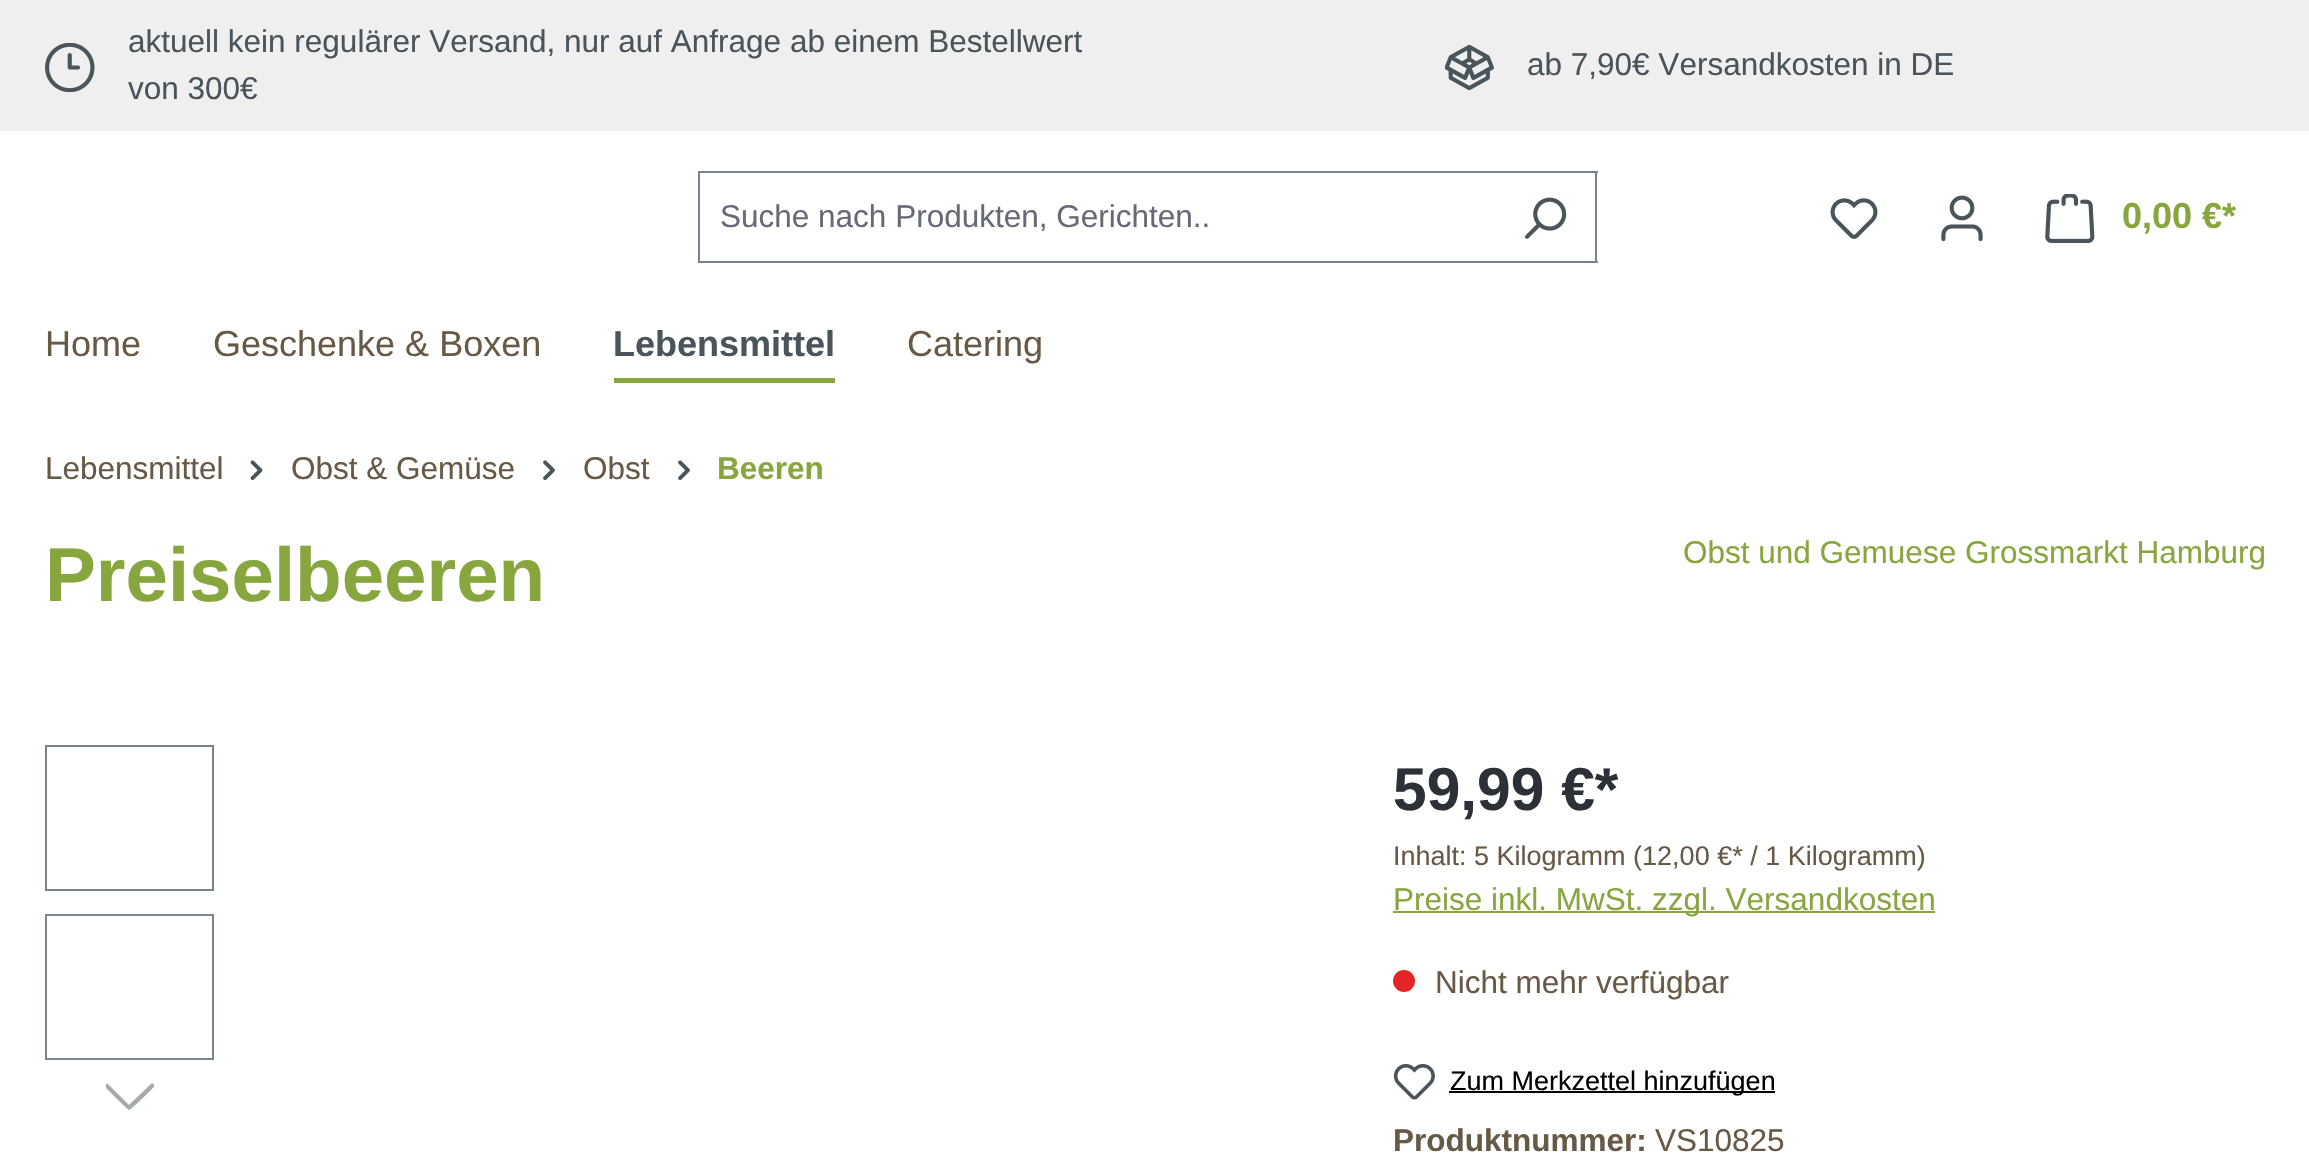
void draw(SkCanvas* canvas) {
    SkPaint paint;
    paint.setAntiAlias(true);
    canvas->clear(0xFFFFFFFF);
    paint.setColor(0xFFEFEFEF);
    canvas->drawRect(SkRect::MakeXYWH(0, 0, 2309, 131), paint);
    canvas->drawImageRect(SkImages::DeferredFromEncodedData(SkData::MakeFromFileName("img1.png")), SkRect::MakeXYWH(45, 43, 50, 49), SkSamplingOptions());
    SkFont font1(fontMgr->matchFamilyStyle("Liberation Sans", SkFontStyle::Normal()), 31.5f);
    font1.setSubpixel(true);
    paint.setColor(0xFF4A545B);
    canvas->drawString("aktuell kein regulärer Versand, nur auf Anfrage ab einem Bestellwert", 128, 52, font1, paint);
    canvas->drawString("von 300€", 128, 99, font1, paint);
    canvas->drawImageRect(SkImages::DeferredFromEncodedData(SkData::MakeFromFileName("img2.png")), SkRect::MakeXYWH(1445, 44, 49, 47), SkSamplingOptions());
    canvas->drawString("ab 7,90€ Versandkosten in DE", 1527, 75, font1, paint);
    paint.setColor(0xFF798490);
    canvas->drawRect(SkRect::MakeXYWH(698, 171, 900, 2), paint);
    canvas->drawRect(SkRect::MakeXYWH(698, 261, 796, 2), paint);
    canvas->drawRect(SkRect::MakeXYWH(698, 171, 2, 92), paint);
    paint.setColor(0xFF666977);
    canvas->drawString("Suche nach Produkten, Gerichten..", 720, 227, font1, paint);
    paint.setColor(0xFF798490);
    canvas->drawRect(SkRect::MakeXYWH(1595, 171, 2, 92), paint);
    canvas->drawRect(SkRect::MakeXYWH(1492, 261, 106, 2), paint);
    canvas->drawImageRect(SkImages::DeferredFromEncodedData(SkData::MakeFromFileName("img3.png")), SkRect::MakeXYWH(1525, 197, 42, 42), SkSamplingOptions());
    canvas->drawImageRect(SkImages::DeferredFromEncodedData(SkData::MakeFromFileName("img4.png")), SkRect::MakeXYWH(1830, 198, 48, 41), SkSamplingOptions());
    canvas->drawImageRect(SkImages::DeferredFromEncodedData(SkData::MakeFromFileName("img5.png")), SkRect::MakeXYWH(1941, 195, 42, 47), SkSamplingOptions());
    canvas->drawImageRect(SkImages::DeferredFromEncodedData(SkData::MakeFromFileName("img6.png")), SkRect::MakeXYWH(2045, 194, 50, 49), SkSamplingOptions());
    SkFont font2(fontMgr->matchFamilyStyle("Liberation Sans", SkFontStyle::Bold()), 36);
    font2.setSubpixel(true);
    paint.setColor(0xFF87A63E);
    canvas->drawString("0,00 €*", 2122, 228, font2, paint);
    SkFont font3(fontMgr->matchFamilyStyle("Liberation Sans", SkFontStyle::Normal()), 36);
    font3.setSubpixel(true);
    paint.setColor(0xFF685946);
    canvas->drawString("Home", 45, 356, font3, paint);
    canvas->drawString("Geschenke & Boxen", 213, 356, font3, paint);
    paint.setColor(0xFF87A63E);
    canvas->drawRect(SkRect::MakeXYWH(614, 378, 221, 5), paint);
    paint.setColor(0xFF4A545B);
    canvas->drawString("Lebensmittel", 613, 356, font2, paint);
    paint.setColor(0xFF685946);
    canvas->drawString("Catering", 907, 356, font3, paint);
    canvas->drawString("Lebensmittel", 45, 479, font1, paint);
    canvas->drawImageRect(SkImages::DeferredFromEncodedData(SkData::MakeFromFileName("img7.png")), SkRect::MakeXYWH(250, 460, 13, 21), SkSamplingOptions());
    canvas->drawString("Obst & Gemüse", 291, 479, font1, paint);
    canvas->drawImageRect(SkImages::DeferredFromEncodedData(SkData::MakeFromFileName("img8.png")), SkRect::MakeXYWH(543, 460, 12, 21), SkSamplingOptions());
    canvas->drawString("Obst", 583, 479, font1, paint);
    canvas->drawImageRect(SkImages::DeferredFromEncodedData(SkData::MakeFromFileName("img8.png")), SkRect::MakeXYWH(678, 460, 12, 21), SkSamplingOptions());
    SkFont font4(fontMgr->matchFamilyStyle("Liberation Sans", SkFontStyle::Bold()), 31.5f);
    font4.setSubpixel(true);
    paint.setColor(0xFF87A63E);
    canvas->drawString("Beeren", 717, 479, font4, paint);
    SkFont font5(fontMgr->matchFamilyStyle("Liberation Sans", SkFontStyle::Bold()), 76.25f);
    font5.setSubpixel(true);
    canvas->drawString("Preiselbeeren", 45, 601, font5, paint);
    canvas->drawString("Obst und Gemuese Grossmarkt Hamburg", 1683, 563, font1, paint);
    paint.setStyle(SkPaint::kStroke_Style);
    paint.setStrokeWidth(2);
    paint.setColor(0xFF798490);
    canvas->drawRect(SkRect::MakeXYWH(46, 746, 167, 144), paint);
    canvas->drawRect(SkRect::MakeXYWH(46, 915, 167, 144), paint);
    canvas->save();
    canvas->clipRect(SkRect::MakeXYWH(106, 1073, 49, 50));
    paint.setStyle(SkPaint::kFill_Style);
    paint.setColor(0xFFA5AAAD);
    canvas->drawPath(SkPathBuilder(SkPathFillType::kEvenOdd).moveTo(129, 1105).lineTo(151, 1084).cubicTo(152, 1083, 154, 1084, 154, 1085).lineTo(154, 1087).cubicTo(152, 1089, 131, 1110, 129, 1110).cubicTo(128, 1110, 107, 1089, 105, 1087).lineTo(105, 1085).cubicTo(105, 1084, 107, 1083, 108, 1084).close().detach(), paint);
    canvas->restore();
    SkFont font6(fontMgr->matchFamilyStyle("Liberation Sans", SkFontStyle::Bold()), 60.5f);
    font6.setSubpixel(true);
    paint.setColor(0xFF2B3136);
    canvas->drawString("59,99 €*", 1393, 810, font6, paint);
    SkFont font7(fontMgr->matchFamilyStyle("Liberation Sans", SkFontStyle::Normal()), 27);
    font7.setSubpixel(true);
    paint.setColor(0xFF685946);
    canvas->drawString("Inhalt: 5 Kilogramm (12,00 €* / 1 Kilogramm)", 1393, 865, font7, paint);
    paint.setColor(0xFF87A63E);
    canvas->drawRect(SkRect::MakeXYWH(1393, 911, 542, 2), paint);
    canvas->drawString("Preise inkl. MwSt. zzgl. Versandkosten", 1393, 910, font1, paint);
    paint.setColor(0xFFE52427);
    canvas->drawCircle(1404, 981, 11, paint);
    paint.setColor(0xFF685946);
    canvas->drawString("Nicht mehr verfügbar", 1435, 993, font1, paint);
    canvas->drawImageRect(SkImages::DeferredFromEncodedData(SkData::MakeFromFileName("img9.png")), SkRect::MakeXYWH(1393, 1064, 42, 36), SkSamplingOptions());
    paint.setColor(0xFF000000);
    canvas->drawRect(SkRect::MakeXYWH(1449, 1091, 326, 2), paint);
    canvas->drawString("Zum Merkzettel hinzufügen", 1450, 1090, font7, paint);
    paint.setColor(0xFF685946);
    canvas->drawString("Produktnummer:", 1393, 1151, font4, paint);
    canvas->drawString("VS10825", 1655, 1151, font1, paint);
}
